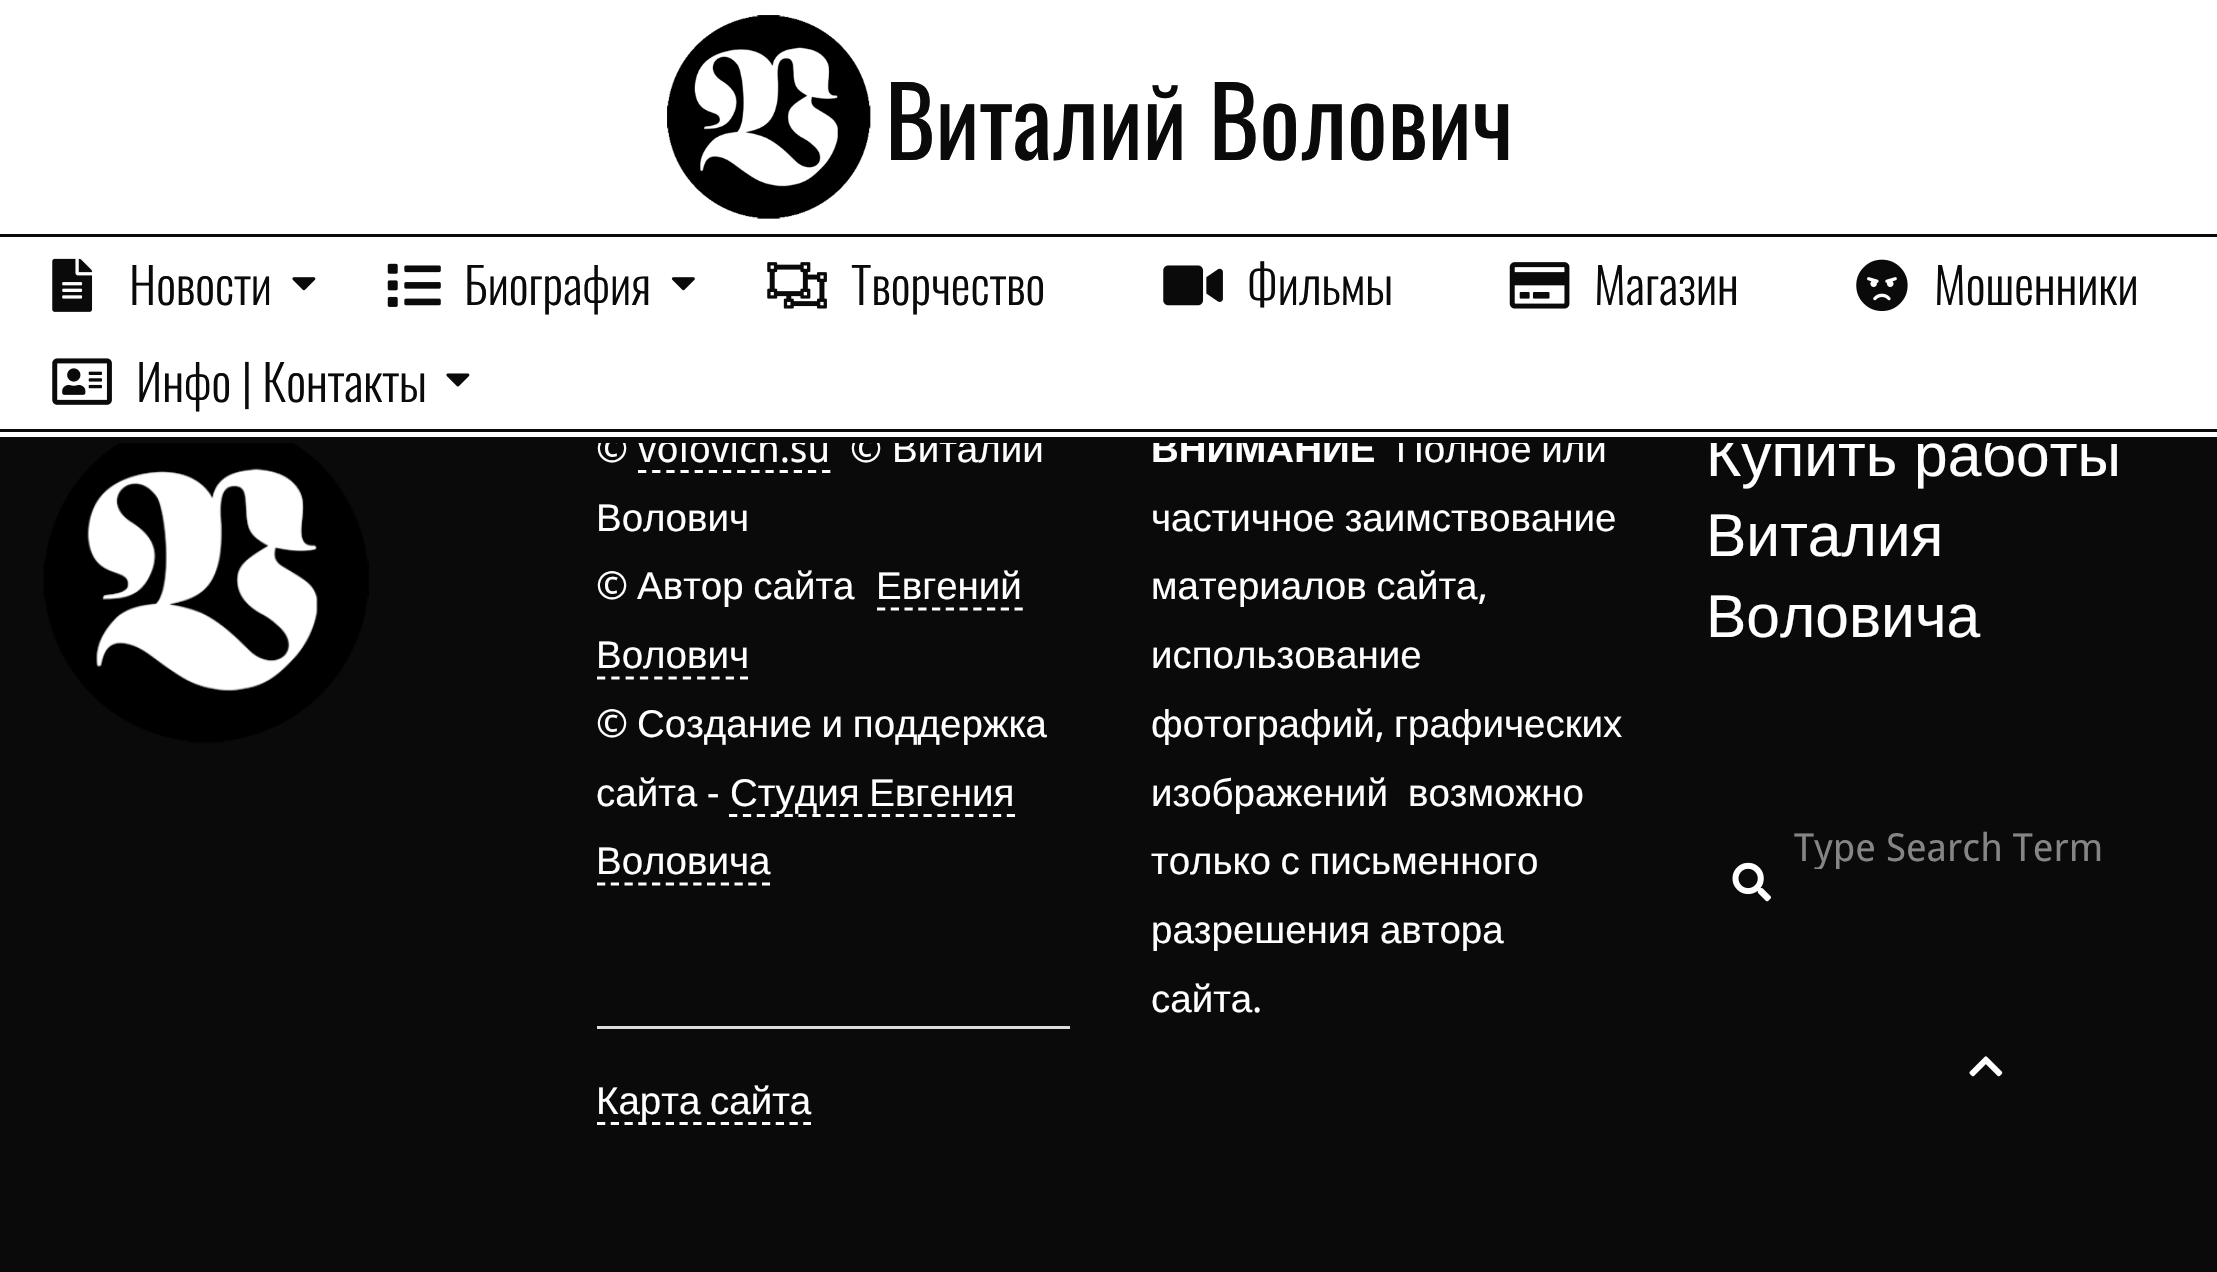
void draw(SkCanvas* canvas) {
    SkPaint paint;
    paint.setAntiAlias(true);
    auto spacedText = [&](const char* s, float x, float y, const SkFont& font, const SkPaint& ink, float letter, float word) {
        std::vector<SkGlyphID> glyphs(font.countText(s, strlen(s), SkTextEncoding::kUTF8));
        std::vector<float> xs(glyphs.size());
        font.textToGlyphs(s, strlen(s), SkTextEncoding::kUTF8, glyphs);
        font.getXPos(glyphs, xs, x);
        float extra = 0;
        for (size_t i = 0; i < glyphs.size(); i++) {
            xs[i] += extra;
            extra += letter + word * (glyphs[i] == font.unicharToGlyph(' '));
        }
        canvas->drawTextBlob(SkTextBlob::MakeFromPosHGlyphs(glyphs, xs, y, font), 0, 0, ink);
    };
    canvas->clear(0xFF0A0A0A);
    paint.setColor(0xFFFFFFFF);
    canvas->drawRect(SkRect::MakeXYWH(0, 0, 2217, 437), paint);
    canvas->drawImageRect(SkImages::DeferredFromEncodedData(SkData::MakeFromFileName("img1.png")), SkRect::MakeXYWH(667, 15, 204, 204), SkSamplingOptions());
    SkFont font1(fontMgr->matchFamilyStyle("Oswald", SkFontStyle::Normal()), 96.25f);
    font1.setSubpixel(true);
    paint.setColor(0xFF0A0A0A);
    canvas->drawString("Виталий Волович", 885, 160, font1, paint);
    canvas->drawRect(SkRect::MakeXYWH(0, 234, 2217, 3), paint);
    SkFont font2(fontMgr->matchFamilyStyle("Droid Sans", SkFontStyle::Normal()), 38.5f);
    font2.setSubpixel(true);
    paint.setColor(0xFFFFFFFF);
    canvas->drawString("© volovich.su", 596, 462, font2, paint);
    canvas->drawString("©", 850, 462, font2, paint);
    SkFont font3(fontMgr->matchFamilyStyle("Liberation Sans", SkFontStyle::Normal()), 38.5f);
    font3.setSubpixel(true);
    canvas->drawString("Виталий", 892, 462, font3, paint);
    SkFont font4(fontMgr->matchFamilyStyle("Liberation Sans", SkFontStyle::Bold()), 38.5f);
    font4.setSubpixel(true);
    canvas->drawString("ВНИМАНИЕ", 1151, 462, font4, paint);
    spacedText("Полное или", 1396, 462, font3, paint, 0, -1);
    SkFont font5(fontMgr->matchFamilyStyle("Liberation Sans", SkFontStyle::Normal()), 60.5f);
    font5.setSubpixel(true);
    canvas->drawString("Купить работы", 1706, 476, font5, paint);
    paint.setColor(0xFF0A0A0A);
    canvas->drawRect(SkRect::MakeXYWH(599, 437, 1409, 6), paint);
    canvas->drawImageRect(SkImages::DeferredFromEncodedData(SkData::MakeFromFileName("img2.png")), SkRect::MakeXYWH(52, 258, 41, 54), SkSamplingOptions());
    SkFont font6(fontMgr->matchFamilyStyle("Oswald", SkFontStyle(300, SkFontStyle::kNormal_Width, SkFontStyle::kUpright_Slant)), 49.5f);
    font6.setSubpixel(true);
    canvas->drawString("Новости", 129, 305, font6, paint);
    canvas->drawImageRect(SkImages::DeferredFromEncodedData(SkData::MakeFromFileName("img3.png")), SkRect::MakeXYWH(292, 277, 24, 14), SkSamplingOptions());
    canvas->drawImageRect(SkImages::DeferredFromEncodedData(SkData::MakeFromFileName("img4.png")), SkRect::MakeXYWH(387, 263, 54, 44), SkSamplingOptions());
    canvas->drawString("Биография", 464, 305, font6, paint);
    canvas->drawImageRect(SkImages::DeferredFromEncodedData(SkData::MakeFromFileName("img5.png")), SkRect::MakeXYWH(671, 277, 24, 14), SkSamplingOptions());
    canvas->drawImageRect(SkImages::DeferredFromEncodedData(SkData::MakeFromFileName("img6.png")), SkRect::MakeXYWH(767, 262, 60, 47), SkSamplingOptions());
    canvas->drawString("Творчество", 851, 305, font6, paint);
    canvas->drawImageRect(SkImages::DeferredFromEncodedData(SkData::MakeFromFileName("img7.png")), SkRect::MakeXYWH(1163, 265, 60, 41), SkSamplingOptions());
    canvas->drawString("Фильмы", 1247, 305, font6, paint);
    canvas->drawImageRect(SkImages::DeferredFromEncodedData(SkData::MakeFromFileName("img8.png")), SkRect::MakeXYWH(1509, 262, 61, 47), SkSamplingOptions());
    canvas->drawString("Магазин", 1594, 305, font6, paint);
    canvas->drawImageRect(SkImages::DeferredFromEncodedData(SkData::MakeFromFileName("img9.png")), SkRect::MakeXYWH(1856, 259, 52, 53), SkSamplingOptions());
    canvas->drawString("Мошенники", 1934, 305, font6, paint);
    canvas->drawImageRect(SkImages::DeferredFromEncodedData(SkData::MakeFromFileName("img10.png")), SkRect::MakeXYWH(52, 358, 60, 47), SkSamplingOptions());
    canvas->drawString("Инфо | Контакты", 136, 402, font6, paint);
    canvas->drawImageRect(SkImages::DeferredFromEncodedData(SkData::MakeFromFileName("img11.png")), SkRect::MakeXYWH(446, 373, 24, 14), SkSamplingOptions());
    canvas->drawRect(SkRect::MakeXYWH(0, 429, 2217, 3), paint);
    canvas->drawImageRect(SkImages::DeferredFromEncodedData(SkData::MakeFromFileName("img12.png")), SkRect::MakeXYWH(43, 443, 326, 300), SkSamplingOptions());
    paint.setStyle(SkPaint::kStroke_Style);
    paint.setStrokeWidth(2.8f);
    paint.setColor(0xFFFFFFFF);
    paint.setPathEffect(SkDashPathEffect::Make({{8.25f, 5.91f}}, 0));
    canvas->drawPath(SkPathBuilder().moveTo(638, 471.5f).lineTo(830.5f, 471.5f).detach(), paint);
    paint.setPathEffect(nullptr);
    paint.setStyle(SkPaint::kFill_Style);
    canvas->drawString("Волович", 596, 531, font3, paint);
    canvas->drawString("©", 596, 599, font2, paint);
    spacedText("Автор сайта", 637, 599, font3, paint, 0, -1);
    canvas->drawString("Евгений", 876, 599, font3, paint);
    paint.setStyle(SkPaint::kStroke_Style);
    paint.setPathEffect(SkDashPathEffect::Make({{8.25f, 5.5f}}, 0));
    canvas->drawPath(SkPathBuilder().moveTo(877, 609).lineTo(1023, 609).detach(), paint);
    paint.setPathEffect(nullptr);
    paint.setStyle(SkPaint::kFill_Style);
    canvas->drawString("Волович", 596, 668, font3, paint);
    paint.setStyle(SkPaint::kStroke_Style);
    paint.setPathEffect(SkDashPathEffect::Make({{8.25f, 6.05f}}, 0));
    canvas->drawPath(SkPathBuilder().moveTo(597, 678).lineTo(748, 678).detach(), paint);
    paint.setPathEffect(nullptr);
    paint.setStyle(SkPaint::kFill_Style);
    canvas->drawString("©", 596, 737, font2, paint);
    spacedText("Создание и поддержка", 637, 737, font3, paint, 0, -1);
    canvas->drawString("сайта", 596, 806, font3, paint);
    canvas->drawString("-", 707, 806, font2, paint);
    spacedText("Студия Евгения", 730, 806, font3, paint, 0, -1);
    paint.setStyle(SkPaint::kStroke_Style);
    paint.setPathEffect(SkDashPathEffect::Make({{8.25f, 5.64f}}, 0));
    canvas->drawPath(SkPathBuilder().moveTo(729, 815.5f).lineTo(1015, 815.5f).detach(), paint);
    paint.setPathEffect(nullptr);
    paint.setStyle(SkPaint::kFill_Style);
    canvas->drawString("Воловича", 596, 874, font3, paint);
    paint.setStyle(SkPaint::kStroke_Style);
    paint.setPathEffect(SkDashPathEffect::Make({{8.25f, 5.5f}}, 0));
    canvas->drawPath(SkPathBuilder().moveTo(597, 884).lineTo(770, 884).detach(), paint);
    paint.setPathEffect(nullptr);
    paint.setStyle(SkPaint::kFill_Style);
    paint.setColor(0xFFDDDDDD);
    canvas->drawRect(SkRect::MakeXYWH(597, 1026, 473, 3), paint);
    paint.setColor(0xFFFFFFFF);
    spacedText("Карта сайта", 596, 1114, font3, paint, 0, -1);
    paint.setStyle(SkPaint::kStroke_Style);
    paint.setPathEffect(SkDashPathEffect::Make({{8.25f, 5.5f}}, 0));
    canvas->drawPath(SkPathBuilder().moveTo(597, 1123.5f).lineTo(811, 1123.5f).detach(), paint);
    paint.setPathEffect(nullptr);
    paint.setStyle(SkPaint::kFill_Style);
    spacedText("частичное заимствование", 1151, 531, font3, paint, 0, -1);
    spacedText("материалов сайта", 1151, 599, font3, paint, 0, -1);
    canvas->drawString(",", 1478, 599, font2, paint);
    canvas->drawString("использование", 1151, 668, font3, paint);
    canvas->drawString("фотографий", 1151, 737, font3, paint);
    canvas->drawString(",", 1375, 737, font2, paint);
    canvas->drawString("графических", 1394, 737, font3, paint);
    canvas->drawString("изображений", 1151, 806, font3, paint);
    canvas->drawString("возможно", 1408, 806, font3, paint);
    spacedText("только с письменного", 1151, 874, font3, paint, 0, -1);
    spacedText("разрешения автора", 1151, 943, font3, paint, 0, -1);
    canvas->drawString("сайта", 1151, 1012, font3, paint);
    canvas->drawString(".", 1252, 1012, font2, paint);
    canvas->drawString("Виталия", 1706, 556, font5, paint);
    canvas->drawString("Воловича", 1706, 637, font5, paint);
    canvas->save();
    canvas->clipRect(SkRect::MakeXYWH(1793, 825, 338, 44));
    paint.setColor(0xFF858585);
    canvas->drawString("Type Search Term", 1794, 861, font2, paint);
    canvas->restore();
    canvas->drawImageRect(SkImages::DeferredFromEncodedData(SkData::MakeFromFileName("img13.png")), SkRect::MakeXYWH(1732, 862, 39, 40), SkSamplingOptions());
    canvas->drawImageRect(SkImages::DeferredFromEncodedData(SkData::MakeFromFileName("img14.png")), SkRect::MakeXYWH(1969, 1056, 34, 21), SkSamplingOptions());
}
